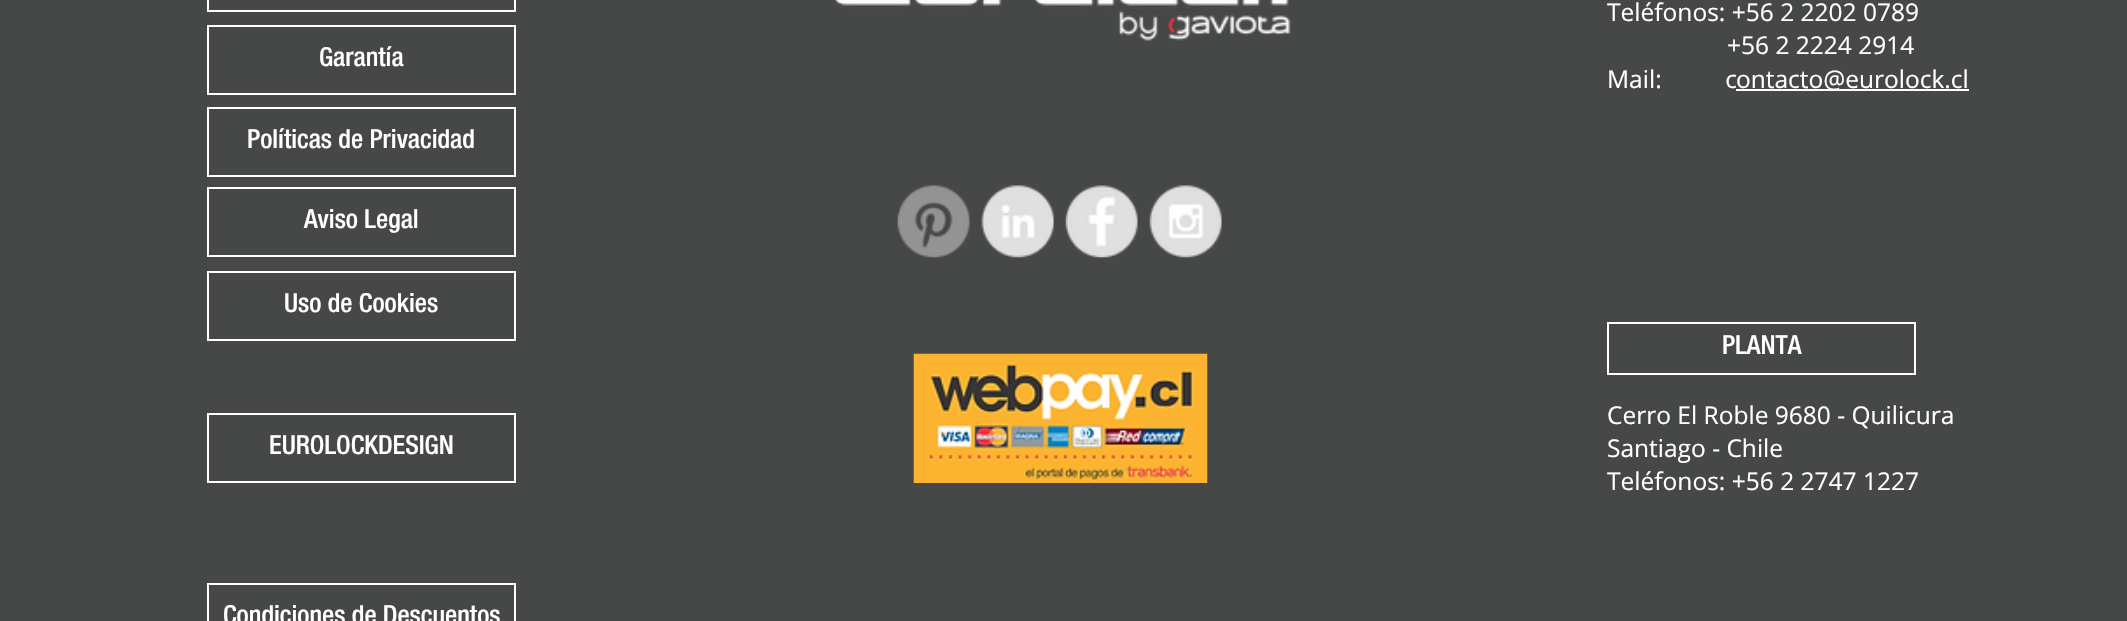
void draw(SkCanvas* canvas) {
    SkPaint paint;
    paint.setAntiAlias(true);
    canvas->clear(0xFF464747);
    paint.setStyle(SkPaint::kStroke_Style);
    paint.setStrokeWidth(2);
    paint.setColor(0xFFFFFFFF);
    canvas->drawRect(SkRect::MakeXYWH(208, -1, 307, 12), paint);
    canvas->drawRect(SkRect::MakeXYWH(208, 26, 307, 68), paint);
    SkFont font1(fontMgr->matchFamilyStyle("Helvetica Neue", SkFontStyle(500, SkFontStyle::kNormal_Width, SkFontStyle::kUpright_Slant)), 26.25f);
    font1.setSubpixel(true);
    paint.setStyle(SkPaint::kFill_Style);
    canvas->drawString("Garantía", 319, 66, font1, paint);
    paint.setStyle(SkPaint::kStroke_Style);
    canvas->drawRect(SkRect::MakeXYWH(208, 108, 307, 68), paint);
    paint.setStyle(SkPaint::kFill_Style);
    canvas->drawString("Políticas de Privacidad", 247, 148, font1, paint);
    paint.setStyle(SkPaint::kStroke_Style);
    canvas->drawRect(SkRect::MakeXYWH(208, 188, 307, 68), paint);
    paint.setStyle(SkPaint::kFill_Style);
    canvas->drawString("Aviso Legal", 304, 228, font1, paint);
    paint.setStyle(SkPaint::kStroke_Style);
    canvas->drawRect(SkRect::MakeXYWH(208, 272, 307, 68), paint);
    paint.setStyle(SkPaint::kFill_Style);
    canvas->drawString("Uso de Cookies", 284, 312, font1, paint);
    canvas->drawImageRect(SkImages::DeferredFromEncodedData(SkData::MakeFromFileName("img1.png")), SkRect::MakeXYWH(834, 0, 457, 41), SkSamplingOptions());
    SkFont font2(fontMgr->matchFamilyStyle("Open Sans", SkFontStyle::Normal()), 24.5f);
    font2.setSubpixel(true);
    canvas->drawString("Teléfonos: +56 2 2202 0789", 1607, 21, font2, paint);
    canvas->drawString("+56 2 2224 2914", 1727, 54, font2, paint);
    canvas->drawString("Mail:          c", 1607, 88, font2, paint);
    canvas->drawRect(SkRect::MakeXYWH(1736, 89, 233, 2), paint);
    canvas->drawString("ontacto@eurolock.cl", 1736, 88, font2, paint);
    canvas->drawImageRect(SkImages::DeferredFromEncodedData(SkData::MakeFromFileName("img2.png")), SkRect::MakeXYWH(897, 185, 73, 73), SkSamplingOptions());
    canvas->drawImageRect(SkImages::DeferredFromEncodedData(SkData::MakeFromFileName("img3.png")), SkRect::MakeXYWH(981, 185, 73, 73), SkSamplingOptions());
    canvas->drawImageRect(SkImages::DeferredFromEncodedData(SkData::MakeFromFileName("img4.png")), SkRect::MakeXYWH(1065, 185, 73, 73), SkSamplingOptions());
    canvas->drawImageRect(SkImages::DeferredFromEncodedData(SkData::MakeFromFileName("img5.png")), SkRect::MakeXYWH(1149, 185, 73, 73), SkSamplingOptions());
    paint.setStyle(SkPaint::kStroke_Style);
    canvas->drawRect(SkRect::MakeXYWH(1608, 323, 307, 51), paint);
    paint.setStyle(SkPaint::kFill_Style);
    canvas->drawString("PLANTA", 1722, 354, font1, paint);
    paint.setStyle(SkPaint::kStroke_Style);
    canvas->drawRect(SkRect::MakeXYWH(208, 414, 307, 68), paint);
    paint.setStyle(SkPaint::kFill_Style);
    canvas->drawString("EUROLOCKDESIGN", 269, 454, font1, paint);
    canvas->drawImageRect(SkImages::DeferredFromEncodedData(SkData::MakeFromFileName("img6.png")), SkRect::MakeXYWH(913, 353, 295, 130), SkSamplingOptions());
    canvas->drawString("Cerro El Roble 9680 - Quilicura", 1607, 424, font2, paint);
    canvas->drawString("Santiago - Chile", 1607, 457, font2, paint);
    canvas->drawString("Teléfonos: +56 2 2747 1227", 1607, 490, font2, paint);
    paint.setStyle(SkPaint::kStroke_Style);
    canvas->drawRect(SkRect::MakeXYWH(208, 584, 307, 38), paint);
    paint.setStyle(SkPaint::kFill_Style);
    canvas->drawString("Condiciones de Descuentos", 223, 624, font1, paint);
}
